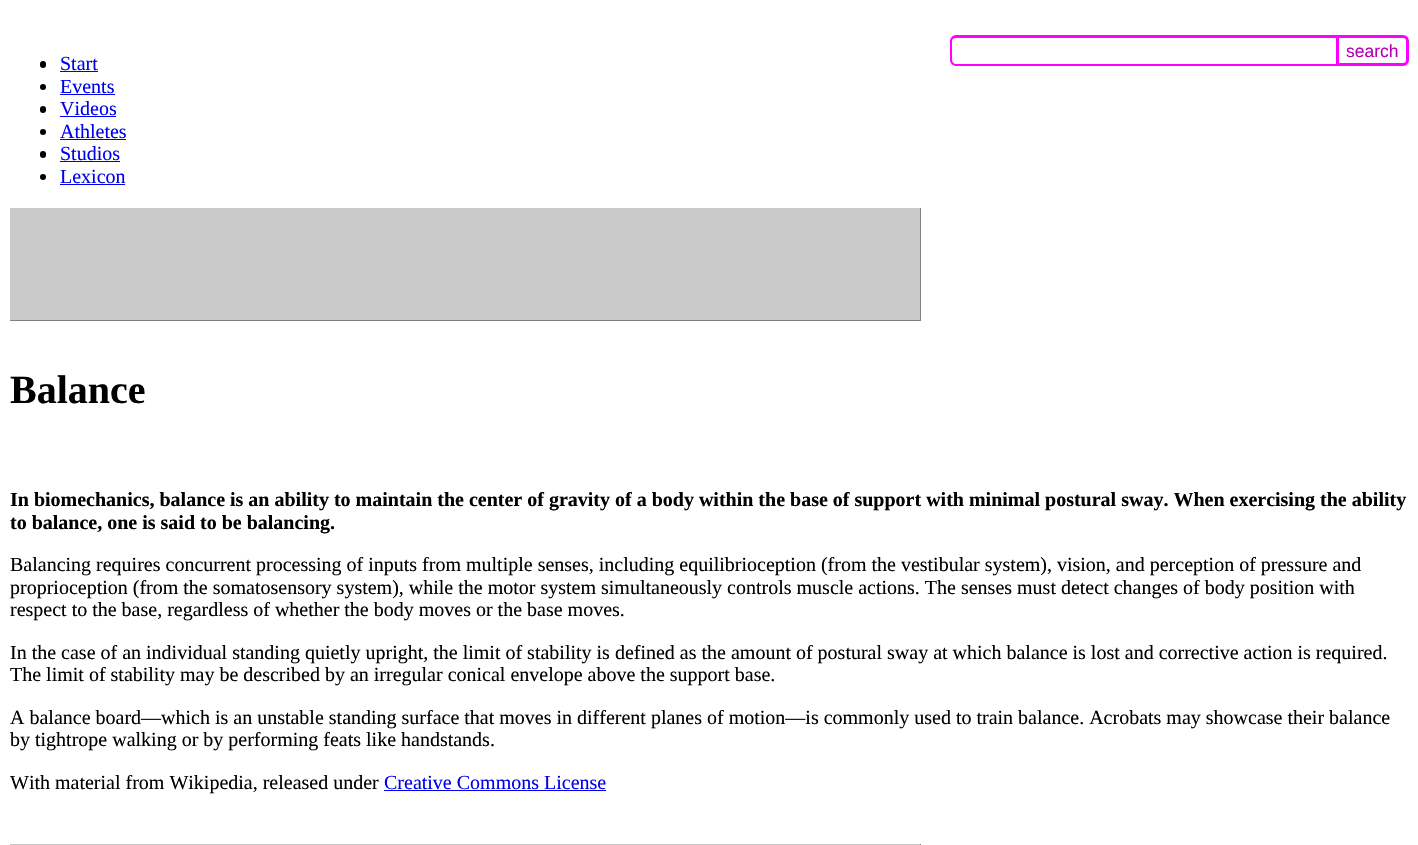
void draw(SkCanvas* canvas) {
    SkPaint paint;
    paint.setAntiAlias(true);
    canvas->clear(0xFFFFFFFF);
    paint.setColor(0xFFFF00FF);
    canvas->drawPath(SkPathBuilder(SkPathFillType::kEvenOdd).moveTo(956, 35).lineTo(1336, 35).lineTo(1336, 66).lineTo(956, 66).cubicTo(953, 66, 950, 63, 950, 60).lineTo(950, 41).cubicTo(950, 38, 953, 35, 956, 35).close().moveTo(956, 38).lineTo(1336, 38).lineTo(1336, 64).lineTo(956, 64).cubicTo(954, 64, 952, 62, 952, 60).lineTo(952, 41).cubicTo(952, 39, 954, 38, 956, 38).close().detach(), paint);
    paint.setStyle(SkPaint::kStroke_Style);
    paint.setStrokeWidth(3);
    canvas->drawPath(SkPathBuilder().moveTo(1337.5f, 36.5f).lineTo(1403, 36.5f).cubicTo(1405.5f, 36.5f, 1407.5f, 38.5f, 1407.5f, 41).lineTo(1407.5f, 60).cubicTo(1407.5f, 62.5f, 1405.5f, 64.5f, 1403, 64.5f).lineTo(1337.5f, 64.5f).close().detach(), paint);
    SkFont font1(fontMgr->matchFamilyStyle("Liberation Sans", SkFontStyle::Normal()), 17.5f);
    font1.setSubpixel(true);
    paint.setStyle(SkPaint::kFill_Style);
    paint.setColor(0xFFB500B5);
    canvas->drawString("search", 1346, 57, font1, paint);
    paint.setColor(0xFF000000);
    canvas->drawRoundRect(SkRect::MakeXYWH(40, 61, 6, 7), 3, 3, paint);
    SkFont font2(fontMgr->matchFamilyStyle("Liberation Serif", SkFontStyle::Normal()), 20);
    font2.setSubpixel(true);
    paint.setColor(0xFF0000EE);
    canvas->drawString("Start", 60, 70, font2, paint);
    canvas->drawRect(SkRect::MakeXYWH(60, 71, 38, 1), paint);
    paint.setColor(0xFF000000);
    canvas->drawCircle(43, 87, 3, paint);
    paint.setColor(0xFF0000EE);
    canvas->drawString("Events", 60, 93, font2, paint);
    canvas->drawRect(SkRect::MakeXYWH(60, 94, 55, 1), paint);
    paint.setColor(0xFF000000);
    canvas->drawRoundRect(SkRect::MakeXYWH(40, 106, 6, 7), 3, 3, paint);
    paint.setColor(0xFF0000EE);
    canvas->drawString("Videos", 60, 115, font2, paint);
    canvas->drawRect(SkRect::MakeXYWH(60, 116, 56, 1), paint);
    paint.setColor(0xFF000000);
    canvas->drawCircle(43, 132, 3, paint);
    paint.setColor(0xFF0000EE);
    canvas->drawString("Athletes", 60, 138, font2, paint);
    canvas->drawRect(SkRect::MakeXYWH(60, 139, 66, 1), paint);
    paint.setColor(0xFF000000);
    canvas->drawRoundRect(SkRect::MakeXYWH(40, 151, 6, 7), 3, 3, paint);
    paint.setColor(0xFF0000EE);
    canvas->drawString("Studios", 60, 160, font2, paint);
    canvas->drawRect(SkRect::MakeXYWH(60, 161, 60, 1), paint);
    paint.setColor(0xFF000000);
    canvas->drawCircle(43, 177, 3, paint);
    paint.setColor(0xFF0000EE);
    canvas->drawString("Lexicon", 60, 183, font2, paint);
    canvas->drawRect(SkRect::MakeXYWH(60, 184, 65, 1), paint);
    paint.setColor(0xFFC9C9C9);
    canvas->drawRect(SkRect::MakeXYWH(10, 208, 910, 112), paint);
    paint.setColor(0xFF808080);
    canvas->drawRect(SkRect::MakeXYWH(920, 208, 1, 113), paint);
    canvas->drawRect(SkRect::MakeXYWH(10, 320, 911, 1), paint);
    SkFont font3(fontMgr->matchFamilyStyle("Liberation Serif", SkFontStyle::Bold()), 40);
    font3.setSubpixel(true);
    paint.setColor(0xFF000000);
    canvas->drawString("Balance", 10, 403, font3, paint);
    SkFont font4(fontMgr->matchFamilyStyle("Liberation Serif", SkFontStyle::Bold()), 20);
    font4.setSubpixel(true);
    canvas->drawString("In biomechanics, balance is an ability to maintain the center of gravity of a body within the base of support with minimal postural sway. When exercising the ability", 10, 506, font4, paint);
    canvas->drawString("to balance, one is said to be balancing.", 10, 529, font4, paint);
    canvas->drawString("Balancing requires concurrent processing of inputs from multiple senses, including equilibrioception (from the vestibular system), vision, and perception of pressure and", 10, 571, font2, paint);
    canvas->drawString("proprioception (from the somatosensory system), while the motor system simultaneously controls muscle actions. The senses must detect changes of body position with", 10, 594, font2, paint);
    canvas->drawString("respect to the base, regardless of whether the body moves or the base moves.", 10, 616, font2, paint);
    canvas->drawString("In the case of an individual standing quietly upright, the limit of stability is defined as the amount of postural sway at which balance is lost and corrective action is required.", 10, 659, font2, paint);
    canvas->drawString("The limit of stability may be described by an irregular conical envelope above the support base.", 10, 681, font2, paint);
    canvas->drawString("A balance board—which is an unstable standing surface that moves in different planes of motion—is commonly used to train balance. Acrobats may showcase their balance", 10, 724, font2, paint);
    canvas->drawString("by tightrope walking or by performing feats like handstands.", 10, 746, font2, paint);
    canvas->drawString("With material from Wikipedia, released under", 10, 789, font2, paint);
    paint.setColor(0xFF0000EE);
    canvas->drawString("Creative Commons License", 384, 789, font2, paint);
    canvas->drawRect(SkRect::MakeXYWH(384, 790, 222, 1), paint);
    paint.setColor(0xFFC9C9C9);
    canvas->drawRect(SkRect::MakeXYWH(10, 844, 911, 1), paint);
    paint.setColor(0xFF808080);
    canvas->drawRect(SkRect::MakeXYWH(920, 844, 1, 1), paint);
}
